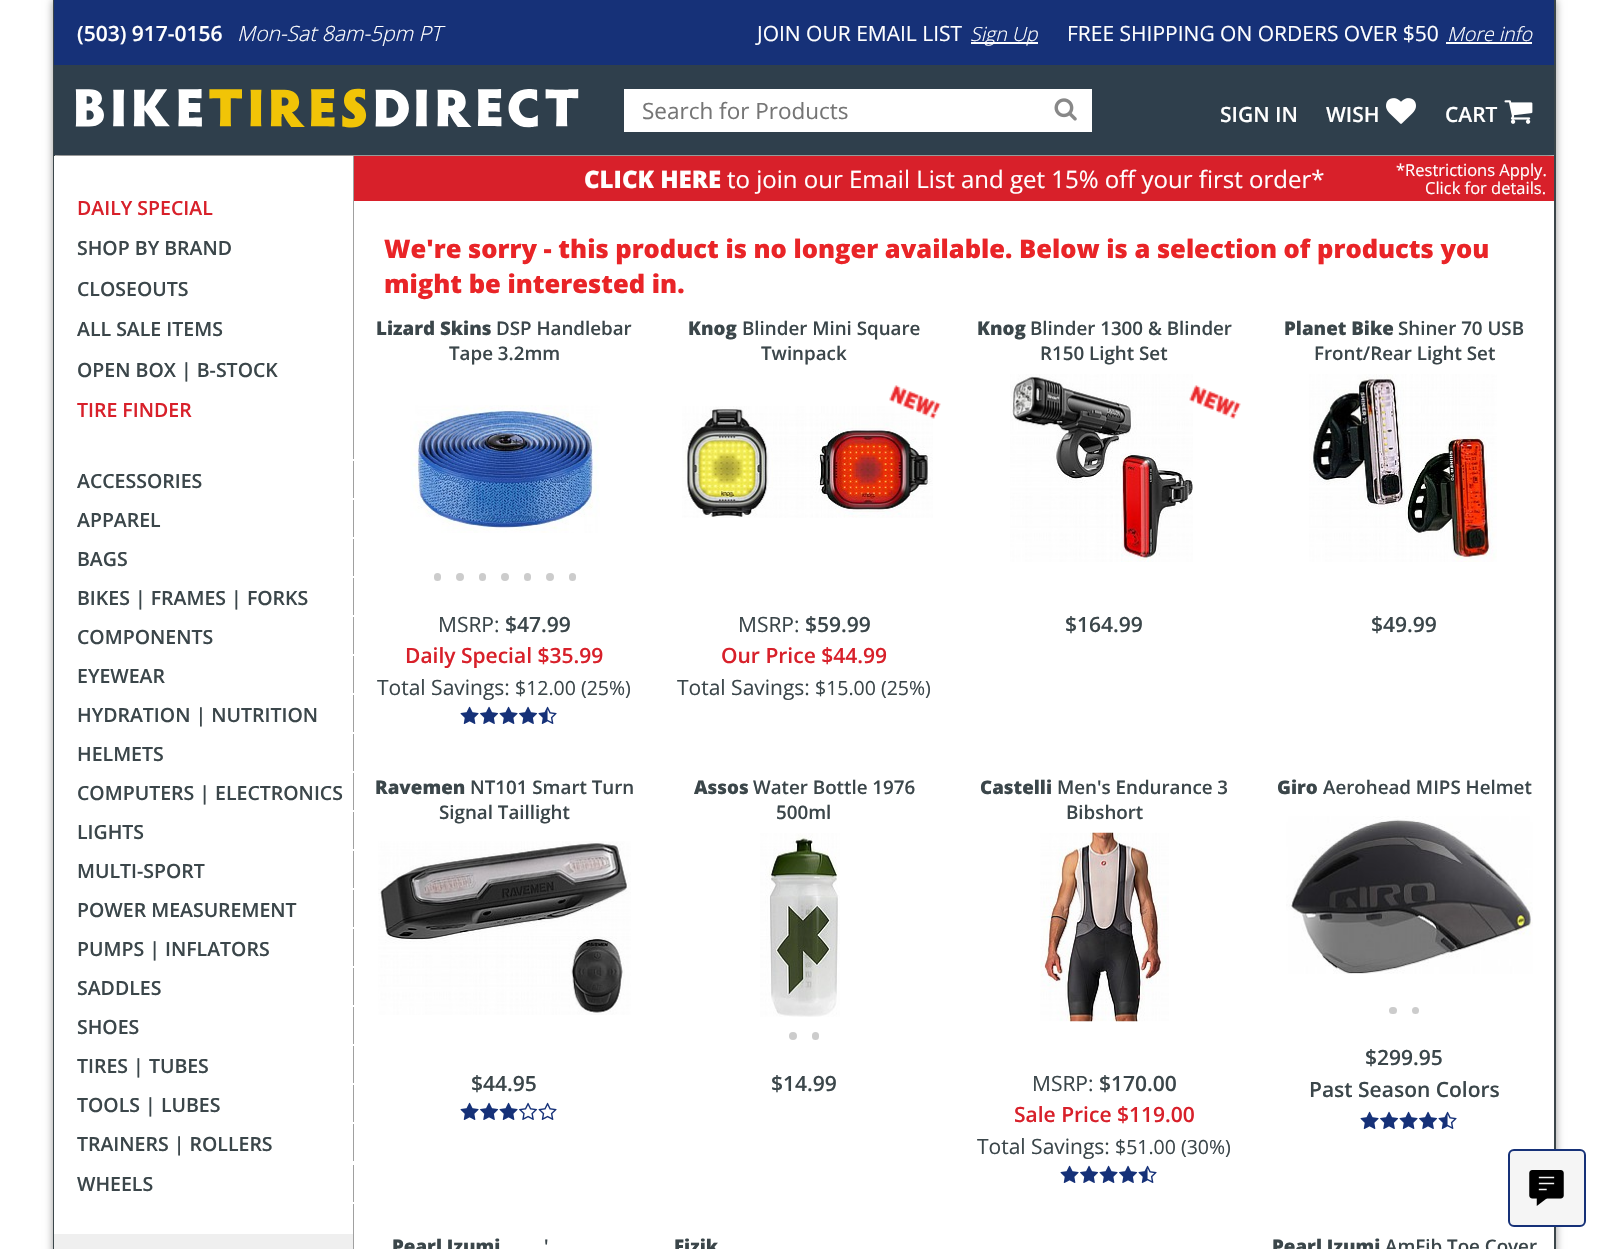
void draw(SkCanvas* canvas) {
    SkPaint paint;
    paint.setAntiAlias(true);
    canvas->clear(0xFFFFFFFF);
    paint.setColor(0x66000000);
    paint.setMaskFilter(SkMaskFilter::MakeBlur(kNormal_SkBlurStyle, 4));
    canvas->drawRect(SkRect::MakeXYWH(53, 0, 1503, 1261), paint);
    paint.setMaskFilter(nullptr);
    paint.setColor(0xFF3B464A);
    canvas->drawRect(SkRect::MakeXYWH(1554, 0, 2, 1249), paint);
    canvas->drawRect(SkRect::MakeXYWH(53, 0, 2, 1249), paint);
    paint.setColor(0xFF163178);
    canvas->drawRect(SkRect::MakeXYWH(54, 0, 1500, 65), paint);
    SkFont font1(fontMgr->matchFamilyStyle("Open Sans", SkFontStyle(600, SkFontStyle::kNormal_Width, SkFontStyle::kUpright_Slant)), 21);
    font1.setSubpixel(true);
    paint.setColor(0xFFFFFFFF);
    canvas->drawString("(503) 917-0156", 77, 41, font1, paint);
    SkFont font2(fontMgr->matchFamilyStyle("Open Sans", SkFontStyle(300, SkFontStyle::kNormal_Width, SkFontStyle::kItalic_Slant)), 21);
    font2.setSubpixel(true);
    canvas->drawString("Mon-Sat 8am-5pm PT", 237, 41, font2, paint);
    SkFont font3(fontMgr->matchFamilyStyle("Open Sans", SkFontStyle::Normal()), 21);
    font3.setSubpixel(true);
    canvas->drawString("JOIN OUR EMAIL LIST", 757, 41, font3, paint);
    canvas->drawRect(SkRect::MakeXYWH(971, 42, 67, 2), paint);
    SkFont font4(fontMgr->matchFamilyStyle("Open Sans", SkFontStyle(300, SkFontStyle::kNormal_Width, SkFontStyle::kItalic_Slant)), 19.5f);
    font4.setSubpixel(true);
    canvas->drawString("Sign Up", 970, 41, font4, paint);
    canvas->drawString("FREE SHIPPING ON ORDERS OVER $50", 1067, 41, font3, paint);
    canvas->drawString("More info", 1447, 41, font4, paint);
    canvas->drawRect(SkRect::MakeXYWH(1446, 42, 86, 2), paint);
    paint.setColor(0xFF2F3F4C);
    canvas->drawRect(SkRect::MakeXYWH(54, 65, 1500, 90), paint);
    canvas->drawImageRect(SkImages::DeferredFromEncodedData(SkData::MakeFromFileName("img1.png")), SkRect::MakeXYWH(75, 88, 504, 40), SkSamplingOptions());
    paint.setColor(0xFFFFFFFF);
    canvas->drawRect(SkRect::MakeXYWH(624, 89, 468, 43), paint);
    SkFont font5(fontMgr->matchFamilyStyle("Open Sans", SkFontStyle::Normal()), 22.5f);
    font5.setSubpixel(true);
    paint.setColor(0xFF757575);
    canvas->drawString("Search for Products", 642, 119, font5, paint);
    canvas->drawImageRect(SkImages::DeferredFromEncodedData(SkData::MakeFromFileName("img2.png")), SkRect::MakeXYWH(1054, 98, 23, 23), SkSamplingOptions());
    paint.setColor(0xFFFFFFFF);
    canvas->drawString("SIGN IN", 1220, 122, font1, paint);
    canvas->drawString("WISH", 1326, 122, font1, paint);
    canvas->drawImageRect(SkImages::DeferredFromEncodedData(SkData::MakeFromFileName("img3.png")), SkRect::MakeXYWH(1386, 98, 30, 26), SkSamplingOptions());
    canvas->drawString("CART", 1445, 122, font1, paint);
    canvas->drawImageRect(SkImages::DeferredFromEncodedData(SkData::MakeFromFileName("img4.png")), SkRect::MakeXYWH(1504, 100, 29, 24), SkSamplingOptions());
    canvas->drawRect(SkRect::MakeXYWH(54, 156, 299, 1078), paint);
    paint.setColor(0xFFA0A0A0);
    canvas->drawRect(SkRect::MakeXYWH(353, 156, 1, 1093), paint);
    SkFont font6(fontMgr->matchFamilyStyle("Open Sans", SkFontStyle(600, SkFontStyle::kNormal_Width, SkFontStyle::kUpright_Slant)), 19.5f);
    font6.setSubpixel(true);
    paint.setColor(0xFFD8202A);
    canvas->drawString("DAILY SPECIAL", 77, 215, font6, paint);
    paint.setColor(0xFF3B464A);
    canvas->drawString("SHOP BY BRAND", 77, 255, font6, paint);
    canvas->drawString("CLOSEOUTS", 77, 296, font6, paint);
    canvas->drawString("ALL SALE ITEMS", 77, 336, font6, paint);
    canvas->drawString("OPEN BOX | B-STOCK", 77, 377, font6, paint);
    paint.setColor(0xFFD8202A);
    canvas->drawString("TIRE FINDER", 77, 417, font6, paint);
    paint.setColor(0xFFFFFFFF);
    canvas->drawRect(SkRect::MakeXYWH(353, 459, 1, 2), paint);
    canvas->drawRect(SkRect::MakeXYWH(353, 498, 1, 2), paint);
    paint.setColor(0xFF3B464A);
    canvas->drawString("ACCESSORIES", 77, 488, font6, paint);
    paint.setColor(0xFFFFFFFF);
    canvas->drawRect(SkRect::MakeXYWH(353, 537, 1, 2), paint);
    paint.setColor(0xFF3B464A);
    canvas->drawString("APPAREL", 77, 527, font6, paint);
    paint.setColor(0xFFFFFFFF);
    canvas->drawRect(SkRect::MakeXYWH(353, 576, 1, 2), paint);
    paint.setColor(0xFF3B464A);
    canvas->drawString("BAGS", 77, 566, font6, paint);
    paint.setColor(0xFFFFFFFF);
    canvas->drawRect(SkRect::MakeXYWH(353, 615, 1, 2), paint);
    paint.setColor(0xFF3B464A);
    canvas->drawString("BIKES | FRAMES | FORKS", 77, 605, font6, paint);
    paint.setColor(0xFFFFFFFF);
    canvas->drawRect(SkRect::MakeXYWH(353, 654, 1, 2), paint);
    paint.setColor(0xFF3B464A);
    canvas->drawString("COMPONENTS", 77, 644, font6, paint);
    paint.setColor(0xFFFFFFFF);
    canvas->drawRect(SkRect::MakeXYWH(353, 693, 1, 2), paint);
    paint.setColor(0xFF3B464A);
    canvas->drawString("EYEWEAR", 77, 683, font6, paint);
    paint.setColor(0xFFFFFFFF);
    canvas->drawRect(SkRect::MakeXYWH(353, 732, 1, 2), paint);
    paint.setColor(0xFF3B464A);
    canvas->drawString("HYDRATION | NUTRITION", 77, 722, font6, paint);
    paint.setColor(0xFFFFFFFF);
    canvas->drawRect(SkRect::MakeXYWH(353, 771, 1, 2), paint);
    paint.setColor(0xFF3B464A);
    canvas->drawString("HELMETS", 77, 761, font6, paint);
    paint.setColor(0xFFFFFFFF);
    canvas->drawRect(SkRect::MakeXYWH(353, 810, 1, 2), paint);
    paint.setColor(0xFF3B464A);
    canvas->drawString("COMPUTERS | ELECTRONICS", 77, 800, font6, paint);
    paint.setColor(0xFFFFFFFF);
    canvas->drawRect(SkRect::MakeXYWH(353, 849, 1, 2), paint);
    paint.setColor(0xFF3B464A);
    canvas->drawString("LIGHTS", 77, 839, font6, paint);
    paint.setColor(0xFFFFFFFF);
    canvas->drawRect(SkRect::MakeXYWH(353, 888, 1, 2), paint);
    paint.setColor(0xFF3B464A);
    canvas->drawString("MULTI-SPORT", 77, 878, font6, paint);
    paint.setColor(0xFFFFFFFF);
    canvas->drawRect(SkRect::MakeXYWH(353, 927, 1, 2), paint);
    paint.setColor(0xFF3B464A);
    canvas->drawString("POWER MEASUREMENT", 77, 917, font6, paint);
    paint.setColor(0xFFFFFFFF);
    canvas->drawRect(SkRect::MakeXYWH(353, 966, 1, 2), paint);
    paint.setColor(0xFF3B464A);
    canvas->drawString("PUMPS | INFLATORS", 77, 956, font6, paint);
    paint.setColor(0xFFFFFFFF);
    canvas->drawRect(SkRect::MakeXYWH(353, 1005, 1, 2), paint);
    paint.setColor(0xFF3B464A);
    canvas->drawString("SADDLES", 77, 995, font6, paint);
    paint.setColor(0xFFFFFFFF);
    canvas->drawRect(SkRect::MakeXYWH(353, 1044, 1, 2), paint);
    paint.setColor(0xFF3B464A);
    canvas->drawString("SHOES", 77, 1034, font6, paint);
    paint.setColor(0xFFFFFFFF);
    canvas->drawRect(SkRect::MakeXYWH(353, 1083, 1, 2), paint);
    paint.setColor(0xFF3B464A);
    canvas->drawString("TIRES | TUBES", 77, 1073, font6, paint);
    paint.setColor(0xFFFFFFFF);
    canvas->drawRect(SkRect::MakeXYWH(353, 1122, 1, 2), paint);
    paint.setColor(0xFF3B464A);
    canvas->drawString("TOOLS | LUBES", 77, 1112, font6, paint);
    paint.setColor(0xFFFFFFFF);
    canvas->drawRect(SkRect::MakeXYWH(353, 1161, 1, 4), paint);
    paint.setColor(0xFF3B464A);
    canvas->drawString("TRAINERS | ROLLERS", 77, 1151, font6, paint);
    paint.setColor(0xFFFFFFFF);
    canvas->drawRect(SkRect::MakeXYWH(353, 1202, 1, 2), paint);
    paint.setColor(0xFF3B464A);
    canvas->drawString("WHEELS", 77, 1191, font6, paint);
    paint.setColor(0xFFEFEFEF);
    canvas->drawRect(SkRect::MakeXYWH(54, 1234, 299, 15), paint);
    paint.setColor(0xFFFFFFFF);
    canvas->drawRect(SkRect::MakeXYWH(354, 201, 1200, 1048), paint);
    paint.setColor(0xFFD8202A);
    canvas->drawRect(SkRect::MakeXYWH(354, 156, 1200, 45), paint);
    SkFont font7(fontMgr->matchFamilyStyle("Open Sans", SkFontStyle(800, SkFontStyle::kNormal_Width, SkFontStyle::kUpright_Slant)), 24);
    font7.setSubpixel(true);
    paint.setColor(0xFFFFFFFF);
    canvas->drawString("CLICK HERE", 584, 188, font7, paint);
    SkFont font8(fontMgr->matchFamilyStyle("Open Sans", SkFontStyle::Normal()), 24);
    font8.setSubpixel(true);
    canvas->drawString("to join our Email List and get 15% off your first order*", 727, 188, font8, paint);
    SkFont font9(fontMgr->matchFamilyStyle("Open Sans", SkFontStyle::Normal()), 16.5f);
    font9.setSubpixel(true);
    canvas->drawString("*Restrictions Apply.", 1396, 176, font9, paint);
    canvas->drawString("Click for details.", 1425, 194, font9, paint);
    SkFont font10(fontMgr->matchFamilyStyle("Open Sans", SkFontStyle(800, SkFontStyle::kNormal_Width, SkFontStyle::kUpright_Slant)), 25.5f);
    font10.setSubpixel(true);
    paint.setColor(0xFFE92427);
    canvas->drawString("We're sorry - this product is no longer available. Below is a selection of products you", 384, 258, font10, paint);
    canvas->drawString("might be interested in.", 384, 293, font10, paint);
    SkFont font11(fontMgr->matchFamilyStyle("Open Sans", SkFontStyle(800, SkFontStyle::kNormal_Width, SkFontStyle::kUpright_Slant)), 18.75f);
    font11.setSubpixel(true);
    paint.setColor(0xFF3B464A);
    canvas->drawString("Lizard Skins", 376, 335, font11, paint);
    SkFont font12(fontMgr->matchFamilyStyle("Open Sans", SkFontStyle(600, SkFontStyle::kNormal_Width, SkFontStyle::kUpright_Slant)), 18.75f);
    font12.setSubpixel(true);
    canvas->drawString("DSP Handlebar", 496, 335, font12, paint);
    canvas->drawString("Tape 3.2mm", 449, 360, font12, paint);
    canvas->drawImageRect(SkImages::DeferredFromEncodedData(SkData::MakeFromFileName("img5.png")), SkRect::MakeXYWH(410, 405, 190, 128), SkSamplingOptions());
    paint.setColor(0xFFCCCCCC);
    canvas->drawRoundRect(SkRect::MakeXYWH(434, 573, 7, 8), 3.5f, 3.5f, paint);
    canvas->drawCircle(460, 577, 4, paint);
    canvas->drawRoundRect(SkRect::MakeXYWH(479, 573, 7, 8), 3.5f, 3.5f, paint);
    canvas->drawCircle(505, 577, 4, paint);
    canvas->drawRoundRect(SkRect::MakeXYWH(524, 573, 7, 8), 3.5f, 3.5f, paint);
    canvas->drawCircle(550, 577, 4, paint);
    canvas->drawRoundRect(SkRect::MakeXYWH(569, 573, 7, 8), 3.5f, 3.5f, paint);
    paint.setColor(0xFF3B464A);
    canvas->drawString("MSRP:", 438, 632, font3, paint);
    canvas->drawString("$47.99", 505, 632, font1, paint);
    paint.setColor(0xFFD8202A);
    canvas->drawString("Daily Special $35.99", 405, 663, font1, paint);
    paint.setColor(0xFF3B464A);
    canvas->drawString("Total Savings:", 377, 695, font3, paint);
    SkFont font13(fontMgr->matchFamilyStyle("Open Sans", SkFontStyle::Normal()), 19.5f);
    font13.setSubpixel(true);
    canvas->drawString("$12.00 (25%)", 515, 695, font13, paint);
    canvas->drawImageRect(SkImages::DeferredFromEncodedData(SkData::MakeFromFileName("img6.png")), SkRect::MakeXYWH(460, 706, 19, 18), SkSamplingOptions());
    canvas->drawImageRect(SkImages::DeferredFromEncodedData(SkData::MakeFromFileName("img7.png")), SkRect::MakeXYWH(480, 706, 19, 18), SkSamplingOptions());
    canvas->drawImageRect(SkImages::DeferredFromEncodedData(SkData::MakeFromFileName("img6.png")), SkRect::MakeXYWH(499, 706, 19, 18), SkSamplingOptions());
    canvas->drawImageRect(SkImages::DeferredFromEncodedData(SkData::MakeFromFileName("img7.png")), SkRect::MakeXYWH(519, 706, 19, 18), SkSamplingOptions());
    canvas->drawImageRect(SkImages::DeferredFromEncodedData(SkData::MakeFromFileName("img8.png")), SkRect::MakeXYWH(538, 706, 19, 18), SkSamplingOptions());
    canvas->drawString("Knog", 688, 335, font11, paint);
    canvas->drawString("Blinder Mini Square", 742, 335, font12, paint);
    canvas->drawString("Twinpack", 761, 360, font12, paint);
    canvas->drawImageRect(SkImages::DeferredFromEncodedData(SkData::MakeFromFileName("img10.png")), SkRect::MakeXYWH(682, 406, 251, 112), SkSamplingOptions());
    canvas->drawImageRect(SkImages::DeferredFromEncodedData(SkData::MakeFromFileName("img9.png")), SkRect::MakeXYWH(889, 385, 52, 34), SkSamplingOptions());
    canvas->drawString("MSRP:", 738, 632, font3, paint);
    canvas->drawString("$59.99", 805, 632, font1, paint);
    paint.setColor(0xFFD8202A);
    canvas->drawString("Our Price $44.99", 721, 663, font1, paint);
    paint.setColor(0xFF3B464A);
    canvas->drawString("Total Savings:", 677, 695, font3, paint);
    canvas->drawString("$15.00 (25%)", 815, 695, font13, paint);
    canvas->drawString("Knog", 977, 335, font11, paint);
    canvas->drawString("Blinder 1300 & Blinder", 1030, 335, font12, paint);
    canvas->drawString("R150 Light Set", 1040, 360, font12, paint);
    canvas->drawImageRect(SkImages::DeferredFromEncodedData(SkData::MakeFromFileName("img11.png")), SkRect::MakeXYWH(1010, 374, 183, 188), SkSamplingOptions());
    canvas->drawImageRect(SkImages::DeferredFromEncodedData(SkData::MakeFromFileName("img12.png")), SkRect::MakeXYWH(1189, 385, 52, 34), SkSamplingOptions());
    canvas->drawString("$164.99", 1065, 632, font1, paint);
    canvas->drawString("Planet Bike", 1284, 335, font11, paint);
    canvas->drawString("Shiner 70 USB", 1398, 335, font12, paint);
    canvas->drawString("Front/Rear Light Set", 1314, 360, font12, paint);
    canvas->drawImageRect(SkImages::DeferredFromEncodedData(SkData::MakeFromFileName("img13.png")), SkRect::MakeXYWH(1309, 374, 188, 188), SkSamplingOptions());
    canvas->drawString("$49.99", 1371, 632, font1, paint);
    canvas->drawString("Ravemen", 375, 794, font11, paint);
    canvas->drawString("NT101 Smart Turn", 470, 794, font12, paint);
    canvas->drawString("Signal Taillight", 439, 819, font12, paint);
    canvas->drawImageRect(SkImages::DeferredFromEncodedData(SkData::MakeFromFileName("img14.png")), SkRect::MakeXYWH(378, 841, 253, 174), SkSamplingOptions());
    canvas->drawString("$44.95", 471, 1091, font1, paint);
    canvas->drawImageRect(SkImages::DeferredFromEncodedData(SkData::MakeFromFileName("img6.png")), SkRect::MakeXYWH(460, 1102, 19, 18), SkSamplingOptions());
    canvas->drawImageRect(SkImages::DeferredFromEncodedData(SkData::MakeFromFileName("img7.png")), SkRect::MakeXYWH(480, 1102, 19, 18), SkSamplingOptions());
    canvas->drawImageRect(SkImages::DeferredFromEncodedData(SkData::MakeFromFileName("img6.png")), SkRect::MakeXYWH(499, 1102, 19, 18), SkSamplingOptions());
    canvas->drawImageRect(SkImages::DeferredFromEncodedData(SkData::MakeFromFileName("img15.png")), SkRect::MakeXYWH(519, 1102, 19, 18), SkSamplingOptions());
    canvas->drawImageRect(SkImages::DeferredFromEncodedData(SkData::MakeFromFileName("img16.png")), SkRect::MakeXYWH(538, 1102, 19, 18), SkSamplingOptions());
    canvas->drawString("Assos", 694, 794, font11, paint);
    canvas->drawString("Water Bottle 1976", 753, 794, font12, paint);
    canvas->drawString("500ml", 776, 819, font12, paint);
    canvas->drawImageRect(SkImages::DeferredFromEncodedData(SkData::MakeFromFileName("img17.png")), SkRect::MakeXYWH(760, 833, 80, 184), SkSamplingOptions());
    paint.setColor(0xFFCCCCCC);
    canvas->drawCircle(793, 1036, 4, paint);
    canvas->drawRoundRect(SkRect::MakeXYWH(812, 1032, 7, 8), 3.5f, 3.5f, paint);
    paint.setColor(0xFF3B464A);
    canvas->drawString("$14.99", 771, 1091, font1, paint);
    canvas->drawString("Castelli", 980, 794, font11, paint);
    canvas->drawString("Men's Endurance 3", 1057, 794, font12, paint);
    canvas->drawString("Bibshort", 1066, 819, font12, paint);
    canvas->drawImageRect(SkImages::DeferredFromEncodedData(SkData::MakeFromFileName("img18.png")), SkRect::MakeXYWH(1040, 832, 129, 190), SkSamplingOptions());
    canvas->drawString("MSRP:", 1032, 1091, font3, paint);
    canvas->drawString("$170.00", 1099, 1091, font1, paint);
    paint.setColor(0xFFD8202A);
    canvas->drawString("Sale Price $119.00", 1014, 1122, font1, paint);
    paint.setColor(0xFF3B464A);
    canvas->drawString("Total Savings:", 977, 1154, font3, paint);
    canvas->drawString("$51.00 (30%)", 1115, 1154, font13, paint);
    canvas->drawImageRect(SkImages::DeferredFromEncodedData(SkData::MakeFromFileName("img6.png")), SkRect::MakeXYWH(1060, 1165, 19, 18), SkSamplingOptions());
    canvas->drawImageRect(SkImages::DeferredFromEncodedData(SkData::MakeFromFileName("img7.png")), SkRect::MakeXYWH(1080, 1165, 19, 18), SkSamplingOptions());
    canvas->drawImageRect(SkImages::DeferredFromEncodedData(SkData::MakeFromFileName("img6.png")), SkRect::MakeXYWH(1099, 1165, 19, 18), SkSamplingOptions());
    canvas->drawImageRect(SkImages::DeferredFromEncodedData(SkData::MakeFromFileName("img7.png")), SkRect::MakeXYWH(1119, 1165, 19, 18), SkSamplingOptions());
    canvas->drawImageRect(SkImages::DeferredFromEncodedData(SkData::MakeFromFileName("img8.png")), SkRect::MakeXYWH(1138, 1165, 19, 18), SkSamplingOptions());
    canvas->drawString("Giro", 1277, 794, font11, paint);
    canvas->drawString("Aerohead MIPS Helmet", 1323, 794, font12, paint);
    canvas->drawImageRect(SkImages::DeferredFromEncodedData(SkData::MakeFromFileName("img19.png")), SkRect::MakeXYWH(1286, 816, 247, 158), SkSamplingOptions());
    paint.setColor(0xFFCCCCCC);
    canvas->drawRoundRect(SkRect::MakeXYWH(1389, 1007, 8, 7), 3.5f, 3.5f, paint);
    canvas->drawCircle(1415.5f, 1010.5f, 3.5f, paint);
    paint.setColor(0xFF3B464A);
    canvas->drawString("$299.95", 1365, 1065, font1, paint);
    canvas->drawString("Past Season Colors", 1309, 1097, font1, paint);
    canvas->drawImageRect(SkImages::DeferredFromEncodedData(SkData::MakeFromFileName("img6.png")), SkRect::MakeXYWH(1360, 1111, 19, 18), SkSamplingOptions());
    canvas->drawImageRect(SkImages::DeferredFromEncodedData(SkData::MakeFromFileName("img7.png")), SkRect::MakeXYWH(1380, 1111, 19, 18), SkSamplingOptions());
    canvas->drawImageRect(SkImages::DeferredFromEncodedData(SkData::MakeFromFileName("img6.png")), SkRect::MakeXYWH(1399, 1111, 19, 18), SkSamplingOptions());
    canvas->drawImageRect(SkImages::DeferredFromEncodedData(SkData::MakeFromFileName("img7.png")), SkRect::MakeXYWH(1419, 1111, 19, 18), SkSamplingOptions());
    canvas->drawImageRect(SkImages::DeferredFromEncodedData(SkData::MakeFromFileName("img8.png")), SkRect::MakeXYWH(1438, 1111, 19, 18), SkSamplingOptions());
    canvas->drawString("Pearl Izumi", 392, 1253, font11, paint);
    canvas->drawString("'", 544, 1253, font12, paint);
    canvas->drawString("Fizik", 674, 1253, font11, paint);
    canvas->drawString("Pearl Izumi", 1272, 1253, font11, paint);
    canvas->drawString("AmFib Toe Cover", 1385, 1253, font12, paint);
    paint.setColor(0xFFF5F5F5);
    canvas->drawRoundRect(SkRect::MakeXYWH(1509, 1150, 76, 76), 5, 5, paint);
    paint.setStyle(SkPaint::kStroke_Style);
    paint.setStrokeWidth(2);
    paint.setColor(0xFF163178);
    canvas->drawRoundRect(SkRect::MakeXYWH(1509, 1150, 76, 76), 5, 5, paint);
    canvas->drawImageRect(SkImages::DeferredFromEncodedData(SkData::MakeFromFileName("img20.png")), SkRect::MakeXYWH(1529, 1170, 35, 36), SkSamplingOptions());
}
